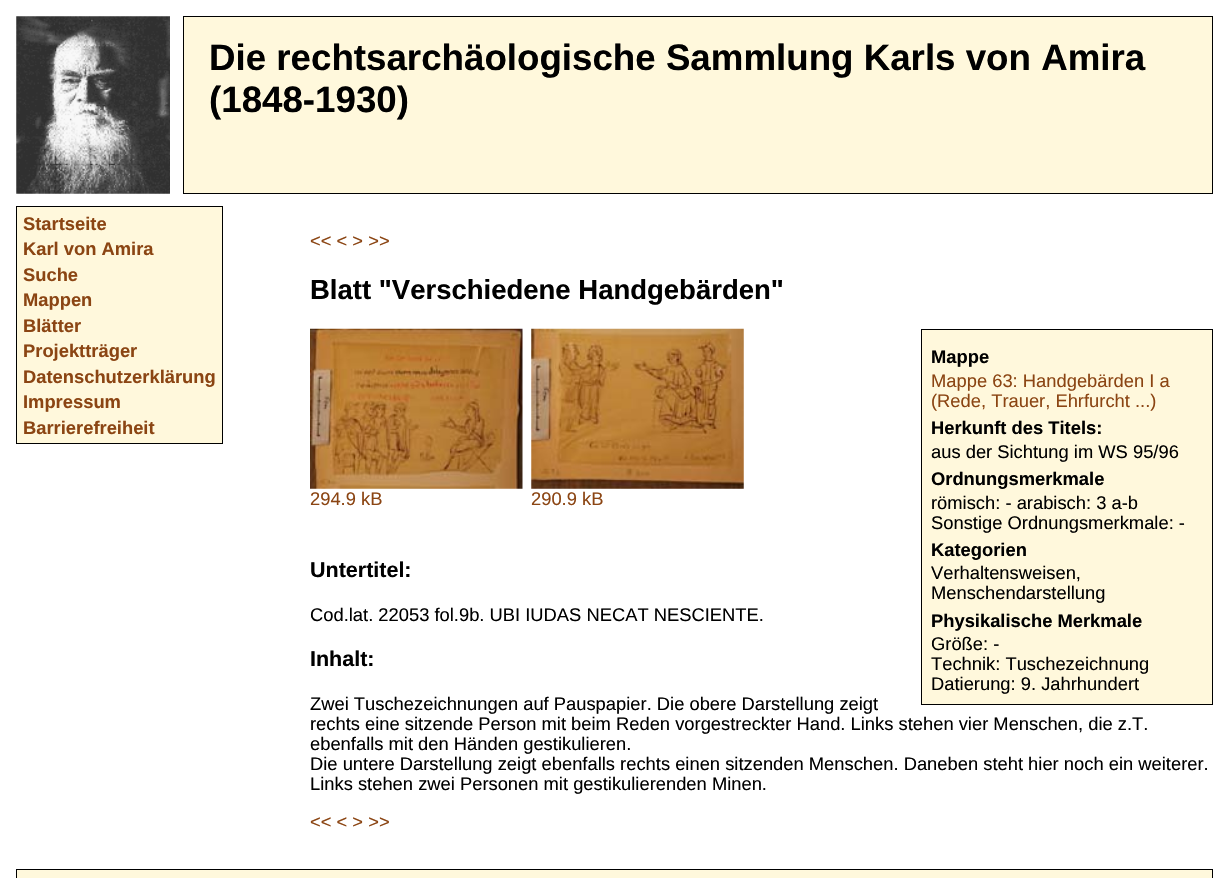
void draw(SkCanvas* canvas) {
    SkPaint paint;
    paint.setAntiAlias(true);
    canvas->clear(0xFFFFFFFF);
    canvas->drawImageRect(SkImages::DeferredFromEncodedData(SkData::MakeFromFileName("img1.png")), SkRect::MakeXYWH(16, 16, 154, 178), SkSamplingOptions());
    paint.setColor(0xFFFFF8DC);
    canvas->drawRect(SkRect::MakeXYWH(183.5f, 16.5f, 1029, 177), paint);
    paint.setStyle(SkPaint::kStroke_Style);
    paint.setStrokeWidth(1);
    paint.setColor(0xFF000000);
    canvas->drawRect(SkRect::MakeXYWH(183.5f, 16.5f, 1029, 177), paint);
    SkFont font1(fontMgr->matchFamilyStyle("Liberation Sans", SkFontStyle::Bold()), 36.7f);
    font1.setSubpixel(true);
    paint.setStyle(SkPaint::kFill_Style);
    canvas->drawString("Die rechtsarchäologische Sammlung Karls von Amira", 209, 70, font1, paint);
    canvas->drawString("(1848-1930)", 209, 112, font1, paint);
    paint.setColor(0xFFFFF8DC);
    canvas->drawRect(SkRect::MakeXYWH(16.5f, 206.5f, 206, 237), paint);
    paint.setStyle(SkPaint::kStroke_Style);
    paint.setColor(0xFF000000);
    canvas->drawRect(SkRect::MakeXYWH(16.5f, 206.5f, 206, 237), paint);
    SkFont font2(fontMgr->matchFamilyStyle("Liberation Sans", SkFontStyle::Bold()), 18.35f);
    font2.setSubpixel(true);
    paint.setStyle(SkPaint::kFill_Style);
    paint.setColor(0xFF8B4513);
    canvas->drawString("Startseite", 23, 230, font2, paint);
    canvas->drawString("Karl von Amira", 23, 255, font2, paint);
    canvas->drawString("Suche", 23, 281, font2, paint);
    canvas->drawString("Mappen", 23, 306, font2, paint);
    canvas->drawString("Blätter", 23, 332, font2, paint);
    canvas->drawString("Projektträger", 23, 357, font2, paint);
    canvas->drawString("Datenschutzerklärung", 23, 383, font2, paint);
    canvas->drawString("Impressum", 23, 408, font2, paint);
    canvas->drawString("Barrierefreiheit", 23, 434, font2, paint);
    SkFont font3(fontMgr->matchFamilyStyle("Liberation Sans", SkFontStyle::Normal()), 18.35f);
    font3.setSubpixel(true);
    canvas->drawString("<< < > >>", 310, 247, font3, paint);
    SkFont font4(fontMgr->matchFamilyStyle("Liberation Sans", SkFontStyle::Bold()), 27.5f);
    font4.setSubpixel(true);
    paint.setColor(0xFF000000);
    canvas->drawString("Blatt \"Verschiedene Handgebärden\"", 310, 299, font4, paint);
    canvas->drawImageRect(SkImages::DeferredFromEncodedData(SkData::MakeFromFileName("img2.png")), SkRect::MakeXYWH(310, 328, 213, 161), SkSamplingOptions());
    paint.setColor(0xFF8B4513);
    canvas->drawString("294.9 kB", 310, 505, font3, paint);
    canvas->drawImageRect(SkImages::DeferredFromEncodedData(SkData::MakeFromFileName("img3.png")), SkRect::MakeXYWH(531, 328, 213, 161), SkSamplingOptions());
    canvas->drawString("290.9 kB", 531, 505, font3, paint);
    paint.setColor(0xFFFFF8DC);
    canvas->drawRect(SkRect::MakeXYWH(921.5f, 329.5f, 291, 375), paint);
    paint.setStyle(SkPaint::kStroke_Style);
    paint.setColor(0xFF000000);
    canvas->drawRect(SkRect::MakeXYWH(921.5f, 329.5f, 291, 375), paint);
    paint.setStyle(SkPaint::kFill_Style);
    canvas->drawString("Mappe", 931, 363, font2, paint);
    paint.setColor(0xFF8B4513);
    canvas->drawString("Mappe 63: Handgebärden I a", 931, 387, font3, paint);
    canvas->drawString("(Rede, Trauer, Ehrfurcht ...)", 931, 407, font3, paint);
    paint.setColor(0xFF000000);
    canvas->drawString("Herkunft des Titels:", 931, 434, font2, paint);
    canvas->drawString("aus der Sichtung im WS 95/96", 931, 458, font3, paint);
    canvas->drawString("Ordnungsmerkmale", 931, 485, font2, paint);
    canvas->drawString("römisch: - arabisch: 3 a-b", 931, 509, font3, paint);
    canvas->drawString("Sonstige Ordnungsmerkmale: -", 931, 529, font3, paint);
    canvas->drawString("Kategorien", 931, 556, font2, paint);
    canvas->drawString("Verhaltensweisen,", 931, 579, font3, paint);
    canvas->drawString("Menschendarstellung", 931, 599, font3, paint);
    canvas->drawString("Physikalische Merkmale", 931, 627, font2, paint);
    canvas->drawString("Größe: -", 931, 650, font3, paint);
    canvas->drawString("Technik: Tuschezeichnung", 931, 670, font3, paint);
    canvas->drawString("Datierung: 9. Jahrhundert", 931, 690, font3, paint);
    SkFont font5(fontMgr->matchFamilyStyle("Liberation Sans", SkFontStyle::Bold()), 21.5f);
    font5.setSubpixel(true);
    canvas->drawString("Untertitel:", 310, 577, font5, paint);
    canvas->drawString("Cod.lat. 22053 fol.9b. UBI IUDAS NECAT NESCIENTE.", 310, 621, font3, paint);
    canvas->drawString("Inhalt:", 310, 666, font5, paint);
    canvas->drawString("Zwei Tuschezeichnungen auf Pauspapier. Die obere Darstellung zeigt", 310, 710, font3, paint);
    canvas->drawString("rechts eine sitzende Person mit beim Reden vorgestreckter Hand. Links stehen vier Menschen, die z.T.", 310, 730, font3, paint);
    canvas->drawString("ebenfalls mit den Händen gestikulieren.", 310, 750, font3, paint);
    canvas->drawString("Die untere Darstellung zeigt ebenfalls rechts einen sitzenden Menschen. Daneben steht hier noch ein weiterer.", 310, 770, font3, paint);
    canvas->drawString("Links stehen zwei Personen mit gestikulierenden Minen.", 310, 790, font3, paint);
    paint.setColor(0xFF8B4513);
    canvas->drawString("<< < > >>", 310, 828, font3, paint);
    paint.setColor(0xFFFFF8DC);
    canvas->drawRect(SkRect::MakeXYWH(16.5f, 869.5f, 1196, 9), paint);
    paint.setStyle(SkPaint::kStroke_Style);
    paint.setColor(0xFF000000);
    canvas->drawRect(SkRect::MakeXYWH(16.5f, 869.5f, 1196, 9), paint);
}
